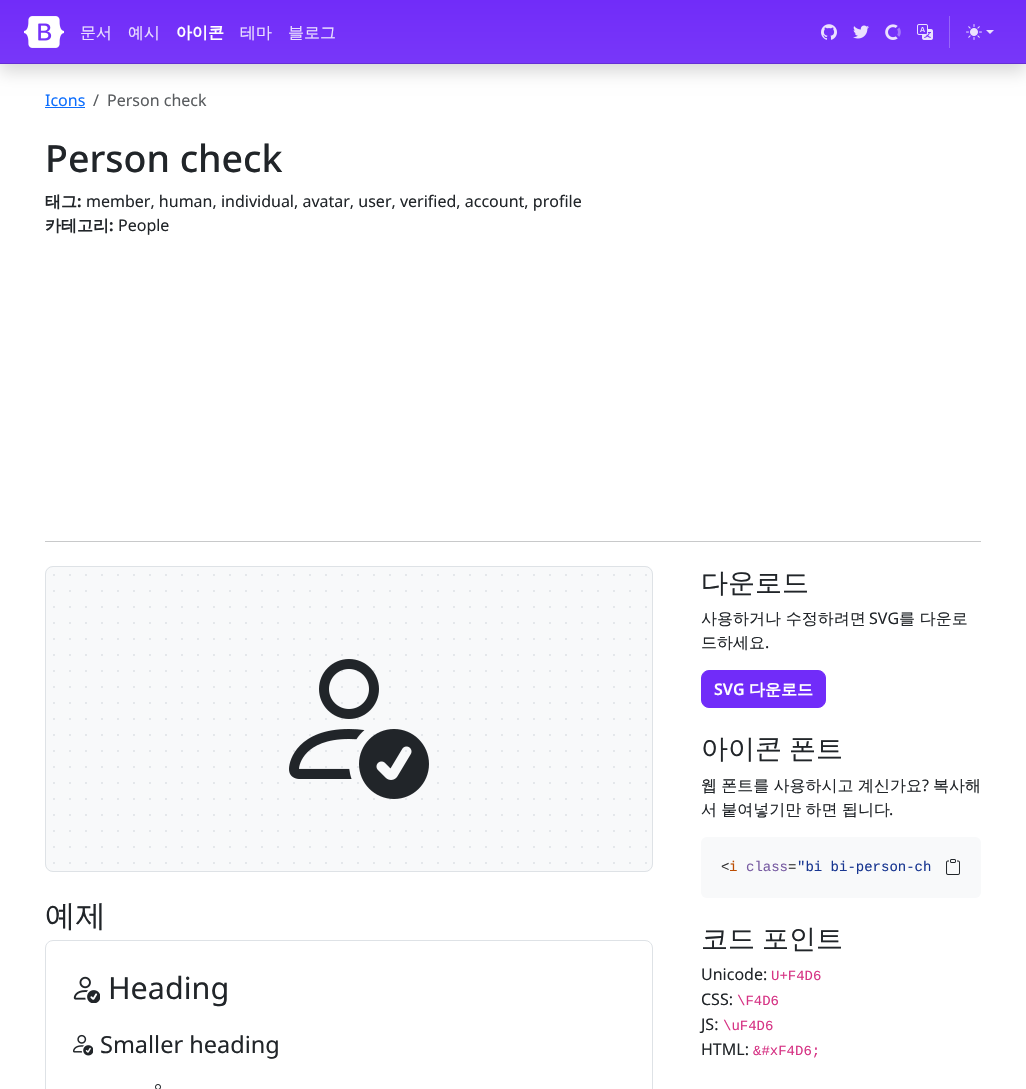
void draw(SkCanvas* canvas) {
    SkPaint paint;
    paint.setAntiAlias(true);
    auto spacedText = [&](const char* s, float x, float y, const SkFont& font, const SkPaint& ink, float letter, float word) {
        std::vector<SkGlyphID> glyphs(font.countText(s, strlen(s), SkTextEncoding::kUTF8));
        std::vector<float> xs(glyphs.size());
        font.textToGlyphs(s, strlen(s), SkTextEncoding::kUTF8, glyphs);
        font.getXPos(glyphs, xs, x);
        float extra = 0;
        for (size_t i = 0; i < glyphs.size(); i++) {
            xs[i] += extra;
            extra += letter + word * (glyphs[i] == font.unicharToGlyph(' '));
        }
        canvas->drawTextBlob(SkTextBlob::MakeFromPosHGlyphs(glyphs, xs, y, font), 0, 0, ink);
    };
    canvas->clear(0xFFFFFFFF);
    paint.setColor(0x26000000);
    paint.setMaskFilter(SkMaskFilter::MakeBlur(kNormal_SkBlurStyle, 8));
    canvas->drawRect(SkRect::MakeXYWH(0, 8, 1026, 64), paint);
    paint.setMaskFilter(nullptr);
    {
        const SkColor colors[] = {0xFF712CF9, 0xFF7837F9};
        const float stops[] = {0, 1};
        const SkPoint ends[] = {{513, 0}, {513, 64}};
        paint.setShader(SkGradientShader::MakeLinear(ends, colors, stops, 2, SkTileMode::kClamp));
        paint.setAlpha(255);
    }
    canvas->drawRect(SkRect::MakeXYWH(0, 0, 1026, 63), paint);
    {
        const SkColor colors[] = {0xFF9561FB, 0xFF9A69FB};
        const float stops[] = {0, 1};
        const SkPoint ends[] = {{513, 0}, {513, 64}};
        paint.setShader(SkGradientShader::MakeLinear(ends, colors, stops, 2, SkTileMode::kClamp));
        paint.setAlpha(255);
    }
    canvas->drawRect(SkRect::MakeXYWH(949, 16, 1, 32), paint);
    paint.setShader(nullptr);
    paint.setColor(0xFF662FD4);
    canvas->drawRect(SkRect::MakeXYWH(0, 63, 1026, 1), paint);
    canvas->drawImageRect(SkImages::DeferredFromEncodedData(SkData::MakeFromFileName("img1.png")), SkRect::MakeXYWH(24, 16, 40, 32), SkSamplingOptions());
    SkFont font1(fontMgr->matchFamilyStyle("WenQuanYi Zen Hei", SkFontStyle(500, SkFontStyle::kNormal_Width, SkFontStyle::kUpright_Slant)), 16);
    font1.setSubpixel(true);
    paint.setColor(0xFFEAE0FE);
    canvas->drawString("문서", 80, 38, font1, paint);
    canvas->drawString("예시", 128, 38, font1, paint);
    SkFont font2(fontMgr->matchFamilyStyle("WenQuanYi Zen Hei", SkFontStyle::Bold()), 16);
    font2.setSubpixel(true);
    paint.setColor(0xFFFFFFFF);
    canvas->drawString("아이콘", 176, 38, font2, paint);
    paint.setColor(0xFFEAE0FE);
    canvas->drawString("테마", 240, 38, font1, paint);
    canvas->drawString("블로그", 288, 38, font1, paint);
    canvas->drawImageRect(SkImages::DeferredFromEncodedData(SkData::MakeFromFileName("img2.png")), SkRect::MakeXYWH(821, 24, 16, 16), SkSamplingOptions());
    canvas->drawImageRect(SkImages::DeferredFromEncodedData(SkData::MakeFromFileName("img3.png")), SkRect::MakeXYWH(853, 25, 16, 14), SkSamplingOptions());
    canvas->drawImageRect(SkImages::DeferredFromEncodedData(SkData::MakeFromFileName("img4.png")), SkRect::MakeXYWH(885, 24, 16, 16), SkSamplingOptions());
    canvas->drawImageRect(SkImages::DeferredFromEncodedData(SkData::MakeFromFileName("img5.png")), SkRect::MakeXYWH(917, 24, 16, 16), SkSamplingOptions());
    canvas->drawImageRect(SkImages::DeferredFromEncodedData(SkData::MakeFromFileName("img6.png")), SkRect::MakeXYWH(966, 24, 16, 16), SkSamplingOptions());
    canvas->drawPath(SkPathBuilder().moveTo(986, 30).lineTo(994, 30).lineTo(990, 34).close().detach(), paint);
    SkFont font3(fontMgr->matchFamilyStyle("Noto Sans", SkFontStyle::Normal()), 16);
    font3.setSubpixel(true);
    paint.setColor(0xFF0D6EFD);
    canvas->drawString("Icons", 45, 106, font3, paint);
    canvas->drawRect(SkRect::MakeXYWH(45, 107, 40, 1), paint);
    paint.setColor(0xFF595C5F);
    canvas->drawString("/", 93, 106, font3, paint);
    canvas->drawString("Person check", 107, 106, font3, paint);
    SkFont font4(fontMgr->matchFamilyStyle("Noto Sans", SkFontStyle(500, SkFontStyle::kNormal_Width, SkFontStyle::kUpright_Slant)), 37.5f);
    font4.setSubpixel(true);
    paint.setColor(0xFF212529);
    canvas->drawString("Person check", 45, 172, font4, paint);
    canvas->drawString("태그", 45, 207, font2, paint);
    SkFont font5(fontMgr->matchFamilyStyle("Noto Sans", SkFontStyle::Bold()), 16);
    font5.setSubpixel(true);
    canvas->drawString(":", 77, 207, font5, paint);
    canvas->drawString("member, human, individual, avatar, user, verified, account, profile", 86, 207, font3, paint);
    canvas->drawString("카테고리", 45, 231, font2, paint);
    canvas->drawString(":", 109, 231, font5, paint);
    canvas->drawString("People", 118, 231, font3, paint);
    paint.setColor(0xFFC8C9CA);
    canvas->drawRect(SkRect::MakeXYWH(45, 541, 936, 1), paint);
    paint.setColor(0xFFF8F9FA);
    canvas->drawRoundRect(SkRect::MakeXYWH(45, 566, 608, 306), 8, 8, paint);
    paint.setStyle(SkPaint::kStroke_Style);
    paint.setStrokeWidth(2);
    paint.setStrokeCap(SkPaint::kRound_Cap);
    paint.setColor(0xFFDEE2E6);
    paint.setPathEffect(SkDashPathEffect::Make({{0, 16}}, 0));
    canvas->drawPath(SkPathBuilder().moveTo(54, 575).lineTo(646.2f, 575).detach(), paint);
    paint.setPathEffect(nullptr);
    paint.setPathEffect(SkDashPathEffect::Make({{0, 16}}, 0));
    canvas->drawPath(SkPathBuilder().moveTo(54, 591).lineTo(646.2f, 591).detach(), paint);
    paint.setPathEffect(nullptr);
    paint.setPathEffect(SkDashPathEffect::Make({{0, 16}}, 0));
    canvas->drawPath(SkPathBuilder().moveTo(54, 607).lineTo(646.2f, 607).detach(), paint);
    paint.setPathEffect(nullptr);
    paint.setPathEffect(SkDashPathEffect::Make({{0, 16}}, 0));
    canvas->drawPath(SkPathBuilder().moveTo(54, 623).lineTo(646.2f, 623).detach(), paint);
    paint.setPathEffect(nullptr);
    paint.setPathEffect(SkDashPathEffect::Make({{0, 16}}, 0));
    canvas->drawPath(SkPathBuilder().moveTo(54, 639).lineTo(646.2f, 639).detach(), paint);
    paint.setPathEffect(nullptr);
    paint.setPathEffect(SkDashPathEffect::Make({{0, 16}}, 0));
    canvas->drawPath(SkPathBuilder().moveTo(54, 655).lineTo(646.2f, 655).detach(), paint);
    paint.setPathEffect(nullptr);
    paint.setPathEffect(SkDashPathEffect::Make({{0, 16}}, 0));
    canvas->drawPath(SkPathBuilder().moveTo(54, 671).lineTo(646.2f, 671).detach(), paint);
    paint.setPathEffect(nullptr);
    paint.setPathEffect(SkDashPathEffect::Make({{0, 16}}, 0));
    canvas->drawPath(SkPathBuilder().moveTo(54, 687).lineTo(646.2f, 687).detach(), paint);
    paint.setPathEffect(nullptr);
    paint.setPathEffect(SkDashPathEffect::Make({{0, 16}}, 0));
    canvas->drawPath(SkPathBuilder().moveTo(54, 703).lineTo(646.2f, 703).detach(), paint);
    paint.setPathEffect(nullptr);
    paint.setPathEffect(SkDashPathEffect::Make({{0, 16}}, 0));
    canvas->drawPath(SkPathBuilder().moveTo(54, 719).lineTo(646.2f, 719).detach(), paint);
    paint.setPathEffect(nullptr);
    paint.setPathEffect(SkDashPathEffect::Make({{0, 16}}, 0));
    canvas->drawPath(SkPathBuilder().moveTo(54, 735).lineTo(646.2f, 735).detach(), paint);
    paint.setPathEffect(nullptr);
    paint.setPathEffect(SkDashPathEffect::Make({{0, 16}}, 0));
    canvas->drawPath(SkPathBuilder().moveTo(54, 751).lineTo(646.2f, 751).detach(), paint);
    paint.setPathEffect(nullptr);
    paint.setPathEffect(SkDashPathEffect::Make({{0, 16}}, 0));
    canvas->drawPath(SkPathBuilder().moveTo(54, 767).lineTo(646.2f, 767).detach(), paint);
    paint.setPathEffect(nullptr);
    paint.setPathEffect(SkDashPathEffect::Make({{0, 16}}, 0));
    canvas->drawPath(SkPathBuilder().moveTo(54, 783).lineTo(646.2f, 783).detach(), paint);
    paint.setPathEffect(nullptr);
    paint.setPathEffect(SkDashPathEffect::Make({{0, 16}}, 0));
    canvas->drawPath(SkPathBuilder().moveTo(54, 799).lineTo(646.2f, 799).detach(), paint);
    paint.setPathEffect(nullptr);
    paint.setPathEffect(SkDashPathEffect::Make({{0, 16}}, 0));
    canvas->drawPath(SkPathBuilder().moveTo(54, 815).lineTo(646.2f, 815).detach(), paint);
    paint.setPathEffect(nullptr);
    paint.setPathEffect(SkDashPathEffect::Make({{0, 16}}, 0));
    canvas->drawPath(SkPathBuilder().moveTo(54, 831).lineTo(646.2f, 831).detach(), paint);
    paint.setPathEffect(nullptr);
    paint.setPathEffect(SkDashPathEffect::Make({{0, 16}}, 0));
    canvas->drawPath(SkPathBuilder().moveTo(54, 847).lineTo(646.2f, 847).detach(), paint);
    paint.setPathEffect(nullptr);
    paint.setPathEffect(SkDashPathEffect::Make({{0, 16}}, 0));
    canvas->drawPath(SkPathBuilder().moveTo(54, 863).lineTo(646.2f, 863).detach(), paint);
    paint.setPathEffect(nullptr);
    paint.setStrokeWidth(1);
    paint.setStrokeCap(SkPaint::kButt_Cap);
    canvas->drawRoundRect(SkRect::MakeXYWH(45.5f, 566.5f, 607, 305), 7.5f, 7.5f, paint);
    canvas->drawImageRect(SkImages::DeferredFromEncodedData(SkData::MakeFromFileName("img7.png")), SkRect::MakeXYWH(289, 659, 140, 140), SkSamplingOptions());
    SkFont font6(fontMgr->matchFamilyStyle("WenQuanYi Zen Hei", SkFontStyle(500, SkFontStyle::kNormal_Width, SkFontStyle::kUpright_Slant)), 30.5f);
    font6.setSubpixel(true);
    paint.setStyle(SkPaint::kFill_Style);
    paint.setColor(0xFF212529);
    canvas->drawString("예제", 45, 926, font6, paint);
    paint.setStyle(SkPaint::kStroke_Style);
    paint.setColor(0xFFDEE2E6);
    canvas->drawRoundRect(SkRect::MakeXYWH(45.5f, 940.5f, 607, 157), 7.5f, 7.5f, paint);
    canvas->drawImageRect(SkImages::DeferredFromEncodedData(SkData::MakeFromFileName("img8.png")), SkRect::MakeXYWH(73, 976, 27, 27), SkSamplingOptions());
    SkFont font7(fontMgr->matchFamilyStyle("Noto Sans", SkFontStyle::Normal()), 30.5f);
    font7.setSubpixel(true);
    paint.setStyle(SkPaint::kFill_Style);
    paint.setColor(0xFF212529);
    canvas->drawString("Heading", 108, 999, font7, paint);
    canvas->drawImageRect(SkImages::DeferredFromEncodedData(SkData::MakeFromFileName("img9.png")), SkRect::MakeXYWH(73, 1034, 20, 22), SkSamplingOptions());
    SkFont font8(fontMgr->matchFamilyStyle("Noto Sans", SkFontStyle::Normal()), 23.5f);
    font8.setSubpixel(true);
    canvas->drawString("Smaller heading", 100, 1053, font8, paint);
    canvas->drawImageRect(SkImages::DeferredFromEncodedData(SkData::MakeFromFileName("img10.png")), SkRect::MakeXYWH(155, 1084, 6, 5), SkSamplingOptions());
    SkFont font9(fontMgr->matchFamilyStyle("WenQuanYi Zen Hei", SkFontStyle(500, SkFontStyle::kNormal_Width, SkFontStyle::kUpright_Slant)), 27);
    font9.setSubpixel(true);
    canvas->drawString("다운로드", 701, 592, font9, paint);
    canvas->drawString("사용하거나 수정하려면", 701, 624, font1, paint);
    canvas->drawString("SVG", 869, 624, font3, paint);
    canvas->drawString("를 다운로", 899, 624, font1, paint);
    canvas->drawString("드하세요", 701, 648, font1, paint);
    canvas->drawString(".", 765, 648, font3, paint);
    paint.setColor(0xFF712CF9);
    canvas->drawRoundRect(SkRect::MakeXYWH(701.5f, 670.5f, 124, 37), 7.5f, 7.5f, paint);
    paint.setStyle(SkPaint::kStroke_Style);
    canvas->drawRoundRect(SkRect::MakeXYWH(701.5f, 670.5f, 124, 37), 7.5f, 7.5f, paint);
    SkFont font10(fontMgr->matchFamilyStyle("Noto Sans", SkFontStyle(600, SkFontStyle::kNormal_Width, SkFontStyle::kUpright_Slant)), 16);
    font10.setSubpixel(true);
    paint.setStyle(SkPaint::kFill_Style);
    paint.setColor(0xFFFFFFFF);
    canvas->drawString("SVG", 714, 695, font10, paint);
    canvas->drawString("다운로드", 749, 695, font2, paint);
    paint.setColor(0xFF212529);
    spacedText("아이콘 폰트", 701, 758, font9, paint, 0, -1);
    spacedText("웹 폰트를 사용하시고 계신가요", 701, 791, font1, paint, 0, -0.5f);
    canvas->drawString("?", 922, 791, font3, paint);
    canvas->drawString("복사해", 933, 791, font1, paint);
    spacedText("서 붙여넣기만 하면 됩니다", 701, 815, font1, paint, 0, -0.5f);
    canvas->drawString(".", 889, 815, font3, paint);
    paint.setColor(0xFFF8F9FA);
    canvas->drawRoundRect(SkRect::MakeXYWH(701, 837, 280, 61), 6, 6, paint);
    SkFont font11(fontMgr->matchFamilyStyle("Liberation Mono", SkFontStyle::Normal()), 14);
    font11.setSubpixel(true);
    paint.setColor(0xFF333333);
    canvas->drawString("<", 721, 871, font11, paint);
    paint.setColor(0xFFBC4C00);
    canvas->drawString("i", 729, 871, font11, paint);
    paint.setColor(0xFF795DA3);
    canvas->drawString("class", 746, 871, font11, paint);
    paint.setColor(0xFF333333);
    canvas->drawString("=", 788, 871, font11, paint);
    paint.setColor(0xFF183691);
    canvas->drawString("\"bi bi-person-ch", 797, 871, font11, paint);
    canvas->drawImageRect(SkImages::DeferredFromEncodedData(SkData::MakeFromFileName("img11.png")), SkRect::MakeXYWH(946, 859, 14, 16), SkSamplingOptions());
    paint.setColor(0xFF212529);
    spacedText("코드 포인트", 701, 948, font9, paint, 0, -1);
    canvas->drawString("Unicode:", 701, 980, font3, paint);
    paint.setColor(0xFFD63384);
    canvas->drawString("U+F4D6", 771, 980, font11, paint);
    paint.setColor(0xFF212529);
    canvas->drawString("CSS:", 701, 1005, font3, paint);
    paint.setColor(0xFFD63384);
    canvas->drawString("\\F4D6", 737, 1005, font11, paint);
    paint.setColor(0xFF212529);
    canvas->drawString("JS:", 701, 1030, font3, paint);
    paint.setColor(0xFFD63384);
    canvas->drawString("\\uF4D6", 723, 1030, font11, paint);
    paint.setColor(0xFF212529);
    canvas->drawString("HTML:", 701, 1055, font3, paint);
    paint.setColor(0xFFD63384);
    canvas->drawString("&#xF4D6;", 753, 1055, font11, paint);
}
